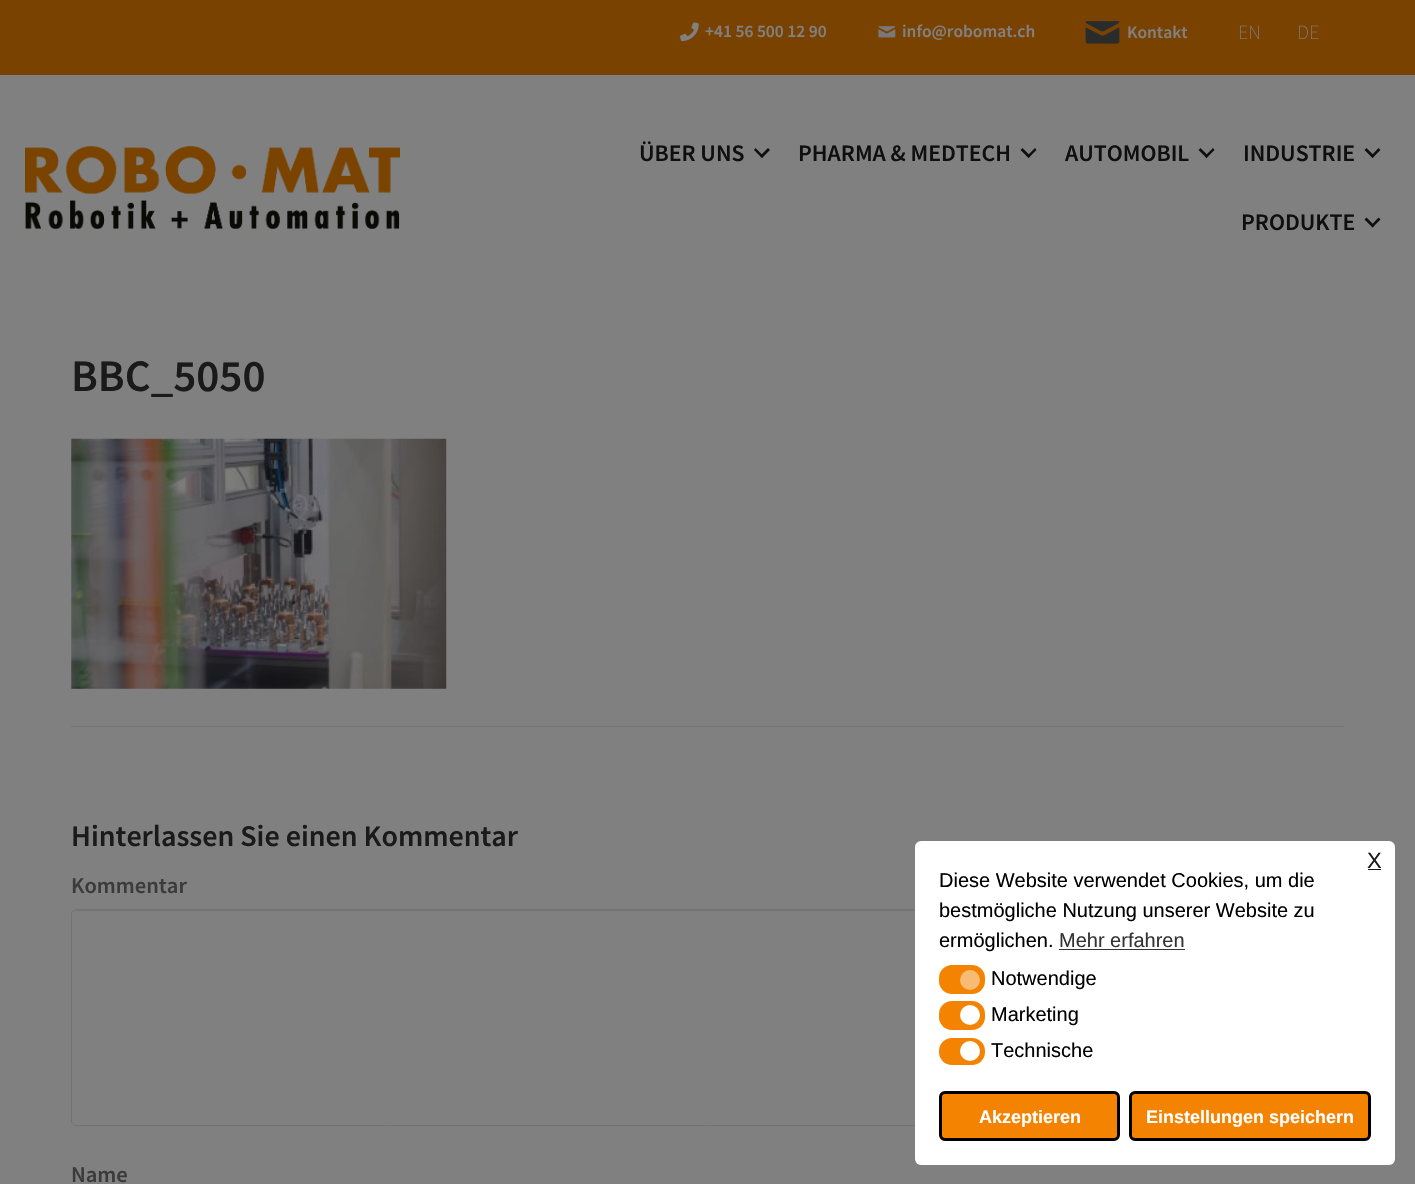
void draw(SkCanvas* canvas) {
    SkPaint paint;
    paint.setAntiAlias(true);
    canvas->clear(0xFF808080);
    paint.setColor(0xFF7A4201);
    canvas->drawRect(SkRect::MakeXYWH(0, 0, 1415, 75), paint);
    canvas->drawImageRect(SkImages::DeferredFromEncodedData(SkData::MakeFromFileName("img1.png")), SkRect::MakeXYWH(680, 22, 19, 20), SkSamplingOptions());
    SkFont font1(fontMgr->matchFamilyStyle("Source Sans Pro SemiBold", SkFontStyle(600, SkFontStyle::kNormal_Width, SkFontStyle::kUpright_Slant)), 17.5f);
    font1.setSubpixel(true);
    paint.setColor(0xFF808080);
    canvas->drawString("+41 56 500 12 90", 705, 37, font1, paint);
    canvas->drawImageRect(SkImages::DeferredFromEncodedData(SkData::MakeFromFileName("img2.png")), SkRect::MakeXYWH(878, 26, 18, 12), SkSamplingOptions());
    canvas->drawString("info@robomat.ch", 902, 37, font1, paint);
    canvas->drawImageRect(SkImages::DeferredFromEncodedData(SkData::MakeFromFileName("img3.png")), SkRect::MakeXYWH(1085, 21, 35, 23), SkSamplingOptions());
    canvas->drawString("Kontakt", 1127, 38, font1, paint);
    SkFont font2(fontMgr->matchFamilyStyle("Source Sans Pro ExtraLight", SkFontStyle(200, SkFontStyle::kNormal_Width, SkFontStyle::kUpright_Slant)), 20);
    font2.setSubpixel(true);
    canvas->drawString("EN", 1238, 39, font2, paint);
    canvas->drawString("DE", 1297, 39, font2, paint);
    canvas->drawImageRect(SkImages::DeferredFromEncodedData(SkData::MakeFromFileName("img4.png")), SkRect::MakeXYWH(25, 146, 375, 83), SkSamplingOptions());
    SkFont font3(fontMgr->matchFamilyStyle("Source Sans Pro SemiBold", SkFontStyle(600, SkFontStyle::kNormal_Width, SkFontStyle::kUpright_Slant)), 23.75f);
    font3.setSubpixel(true);
    paint.setColor(0xFF0F0F0F);
    canvas->drawString("ÜBER UNS", 639, 161, font3, paint);
    canvas->drawPath(SkPathBuilder().moveTo(768, 148).lineTo(770, 150).lineTo(762, 158).lineTo(760, 156).close().detach(), paint);
    canvas->drawPath(SkPathBuilder().moveTo(755.5f, 148).lineTo(763.5f, 156).lineTo(762, 158).lineTo(754, 150).close().detach(), paint);
    canvas->drawString("PHARMA & MEDTECH", 798, 161, font3, paint);
    canvas->drawPath(SkPathBuilder().moveTo(1035, 148).lineTo(1036.5f, 150).lineTo(1028.5f, 158).lineTo(1027, 156).close().detach(), paint);
    canvas->drawPath(SkPathBuilder().moveTo(1022.5f, 148).lineTo(1030.5f, 156).lineTo(1028.5f, 158).lineTo(1020.5f, 150).close().detach(), paint);
    canvas->drawString("AUTOMOBIL", 1065, 161, font3, paint);
    canvas->drawPath(SkPathBuilder().moveTo(1213, 148).lineTo(1214.5f, 150).lineTo(1206.5f, 158).lineTo(1205, 156).close().detach(), paint);
    canvas->drawPath(SkPathBuilder().moveTo(1200.5f, 148).lineTo(1208.5f, 156).lineTo(1206.5f, 158).lineTo(1198.5f, 150).close().detach(), paint);
    canvas->drawString("INDUSTRIE", 1243, 161, font3, paint);
    canvas->drawPath(SkPathBuilder().moveTo(1378.5f, 148).lineTo(1380.5f, 150).lineTo(1372.5f, 158).lineTo(1371, 156).close().detach(), paint);
    canvas->drawPath(SkPathBuilder().moveTo(1366.5f, 148).lineTo(1374.5f, 156).lineTo(1372.5f, 158).lineTo(1364.5f, 150).close().detach(), paint);
    canvas->drawString("PRODUKTE", 1241, 230, font3, paint);
    canvas->drawPath(SkPathBuilder().moveTo(1378.5f, 217.5f).lineTo(1380.5f, 219.5f).lineTo(1372.5f, 227.5f).lineTo(1371, 225.5f).close().detach(), paint);
    canvas->drawPath(SkPathBuilder().moveTo(1366.5f, 217.5f).lineTo(1374.5f, 225.5f).lineTo(1372.5f, 227.5f).lineTo(1364.5f, 219.5f).close().detach(), paint);
    SkFont font4(fontMgr->matchFamilyStyle("Source Sans Pro SemiBold", SkFontStyle(600, SkFontStyle::kNormal_Width, SkFontStyle::kUpright_Slant)), 45);
    font4.setSubpixel(true);
    paint.setColor(0xFF1A1A1A);
    canvas->drawString("BBC_5050", 71, 391, font4, paint);
    canvas->drawImageRect(SkImages::DeferredFromEncodedData(SkData::MakeFromFileName("img5.png")), SkRect::MakeXYWH(71, 438, 376, 251), SkSamplingOptions());
    paint.setColor(0xFF737373);
    canvas->drawRect(SkRect::MakeXYWH(71, 726, 1273, 1), paint);
    SkFont font5(fontMgr->matchFamilyStyle("Source Sans Pro SemiBold", SkFontStyle(600, SkFontStyle::kNormal_Width, SkFontStyle::kUpright_Slant)), 30);
    font5.setSubpixel(true);
    paint.setColor(0xFF1A1A1A);
    canvas->drawString("Hinterlassen Sie einen Kommentar", 71, 846, font5, paint);
    SkFont font6(fontMgr->matchFamilyStyle("Source Sans Pro SemiBold", SkFontStyle(600, SkFontStyle::kNormal_Width, SkFontStyle::kUpright_Slant)), 22.5f);
    font6.setSubpixel(true);
    paint.setColor(0xFF3B3B3B);
    canvas->drawString("Kommentar", 71, 893, font6, paint);
    paint.setColor(0xFF757575);
    canvas->drawPath(SkPathBuilder().moveTo(76, 911).lineTo(1339, 911).cubicTo(1341, 911, 1342, 913, 1342, 915).lineTo(1342, 1124).cubicTo(1343, 1123, 1343, 1122, 1343, 1121).lineTo(1343, 914).cubicTo(1343, 912, 1341, 910, 1339, 910).lineTo(77, 910).cubicTo(76, 910, 74, 911, 74, 912).close().detach(), paint);
    paint.setStyle(SkPaint::kStroke_Style);
    paint.setStrokeWidth(1);
    paint.setColor(0xFF737373);
    canvas->drawRoundRect(SkRect::MakeXYWH(71.5f, 909.5f, 1272, 216), 4.5f, 4.5f, paint);
    paint.setStyle(SkPaint::kFill_Style);
    paint.setColor(0xFF3B3B3B);
    canvas->drawString("Name", 71, 1182, font6, paint);
    paint.setColor(0xFFFFFFFF);
    canvas->drawRoundRect(SkRect::MakeXYWH(915, 841, 480, 324), 6, 6, paint);
    SkFont font7(fontMgr->matchFamilyStyle("Liberation Sans", SkFontStyle::Normal()), 22);
    font7.setSubpixel(true);
    paint.setColor(0xFF1A1A1A);
    canvas->drawString("X", 1367, 868, font7, paint);
    canvas->drawRect(SkRect::MakeXYWH(1368, 869, 13, 1), paint);
    SkFont font8(fontMgr->matchFamilyStyle("Liberation Sans", SkFontStyle::Normal()), 20);
    font8.setSubpixel(true);
    paint.setColor(0xFF000000);
    canvas->drawString("Diese Website verwendet Cookies, um die", 939, 887, font8, paint);
    canvas->drawString("bestmögliche Nutzung unserer Website zu", 939, 917, font8, paint);
    canvas->drawString("ermöglichen.", 939, 947, font8, paint);
    paint.setColor(0xFF333333);
    canvas->drawString("Mehr erfahren", 1059, 947, font8, paint);
    canvas->drawRect(SkRect::MakeXYWH(1059, 949, 126, 1), paint);
    paint.setColor(0xFFF38301);
    canvas->drawRoundRect(SkRect::MakeXYWH(939, 965, 46, 29), 13, 13, paint);
    paint.setColor(0xFFF8BB73);
    canvas->drawCircle(970, 980, 10, paint);
    paint.setColor(0xFF000000);
    canvas->drawString("Notwendige", 991, 985, font8, paint);
    paint.setColor(0xFFF38301);
    canvas->drawRoundRect(SkRect::MakeXYWH(939, 1001, 46, 29), 13, 13, paint);
    paint.setColor(0xFFFFFFFF);
    canvas->drawCircle(970, 1015, 10, paint);
    paint.setColor(0xFF000000);
    canvas->drawString("Marketing", 991, 1021, font8, paint);
    paint.setColor(0xFFF38301);
    canvas->drawRoundRect(SkRect::MakeXYWH(939, 1038, 46, 27), 13, 13, paint);
    paint.setColor(0xFFFFFFFF);
    canvas->drawCircle(970, 1051, 10, paint);
    paint.setColor(0xFF000000);
    canvas->drawString("Technische", 991, 1057, font8, paint);
    paint.setColor(0xFFF38301);
    canvas->drawRoundRect(SkRect::MakeXYWH(940.5f, 1092.5f, 178, 47), 4.5f, 4.5f, paint);
    paint.setStyle(SkPaint::kStroke_Style);
    paint.setStrokeWidth(3);
    paint.setColor(0xFF000000);
    canvas->drawRoundRect(SkRect::MakeXYWH(940.5f, 1092.5f, 178, 47), 4.5f, 4.5f, paint);
    SkFont font9(fontMgr->matchFamilyStyle("Liberation Sans", SkFontStyle::Bold()), 18);
    font9.setSubpixel(true);
    paint.setStyle(SkPaint::kFill_Style);
    paint.setColor(0xFFFFFFFF);
    canvas->drawString("Akzeptieren", 979, 1123, font9, paint);
    paint.setColor(0xFFF38301);
    canvas->drawRoundRect(SkRect::MakeXYWH(1130.5f, 1092.5f, 239, 47), 4.5f, 4.5f, paint);
    paint.setStyle(SkPaint::kStroke_Style);
    paint.setColor(0xFF000000);
    canvas->drawRoundRect(SkRect::MakeXYWH(1130.5f, 1092.5f, 239, 47), 4.5f, 4.5f, paint);
    paint.setStyle(SkPaint::kFill_Style);
    paint.setColor(0xFFFFFFFF);
    canvas->drawString("Einstellungen speichern", 1146, 1123, font9, paint);
}
